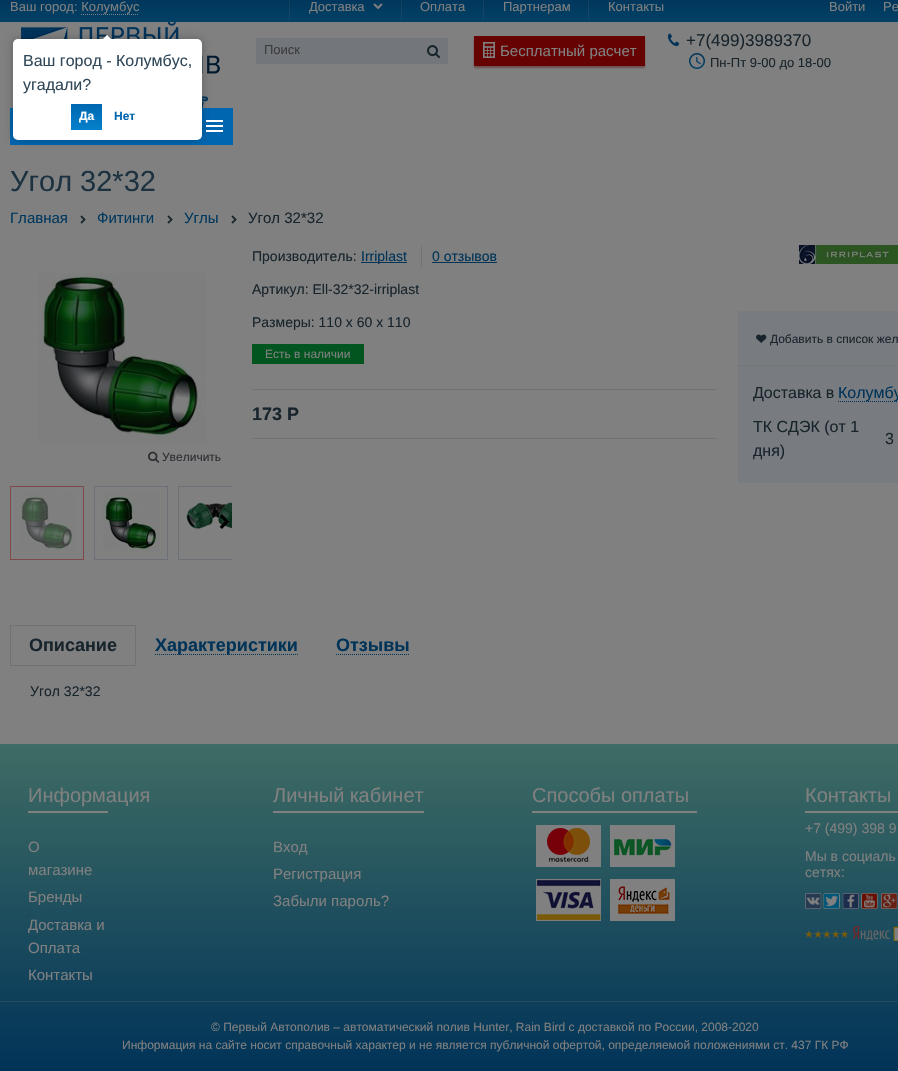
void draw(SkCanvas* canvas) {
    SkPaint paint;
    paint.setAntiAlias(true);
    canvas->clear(0xFFFFFFFF);
    {
        const SkColor colors[] = {0xFF003358, 0xFF034166};
        const float stops[] = {0, 1};
        const SkPoint ends[] = {{485, -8}, {485, 22}};
        paint.setShader(SkGradientShader::MakeLinear(ends, colors, stops, 2, SkTileMode::kClamp));
        paint.setAlpha(255);
    }
    canvas->drawRect(SkRect::MakeXYWH(0, 0, 898, 22), paint);
    {
        const SkColor colors[] = {0xFF133E5D, 0xFF154969};
        const float stops[] = {0, 1};
        const SkPoint ends[] = {{485, -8}, {485, 22}};
        paint.setShader(SkGradientShader::MakeLinear(ends, colors, stops, 2, SkTileMode::kClamp));
        paint.setAlpha(255);
    }
    canvas->drawRect(SkRect::MakeXYWH(588, 0, 1, 20), paint);
    canvas->drawRect(SkRect::MakeXYWH(483, 0, 1, 20), paint);
    canvas->drawRect(SkRect::MakeXYWH(401, 0, 1, 20), paint);
    canvas->drawRect(SkRect::MakeXYWH(289, 0, 1, 20), paint);
    SkFont font1(fontMgr->matchFamilyStyle("Liberation Sans", SkFontStyle::Normal()), 13);
    font1.setSubpixel(true);
    paint.setShader(nullptr);
    paint.setColor(0xFF808080);
    canvas->drawString("Ваш город: Колумбус", 10, 11, font1, paint);
    paint.setStyle(SkPaint::kStroke_Style);
    paint.setStrokeWidth(1);
    paint.setPathEffect(SkDashPathEffect::Make({{1, 1}}, 0));
    canvas->drawPath(SkPathBuilder().moveTo(81, 14.5f).lineTo(139, 14.5f).detach(), paint);
    paint.setPathEffect(nullptr);
    paint.setStyle(SkPaint::kFill_Style);
    canvas->drawString("Доставка", 309, 11, font1, paint);
    canvas->drawImageRect(SkImages::DeferredFromEncodedData(SkData::MakeFromFileName("img1.png")), SkRect::MakeXYWH(373, 3, 10, 7), SkSamplingOptions());
    canvas->drawString("Оплата", 420, 11, font1, paint);
    canvas->drawString("Партнерам", 503, 11, font1, paint);
    canvas->drawString("Контакты", 608, 11, font1, paint);
    canvas->drawString("Войти", 829, 11, font1, paint);
    canvas->drawString("Ре", 883, 11, font1, paint);
    canvas->drawRect(SkRect::MakeXYWH(0, 22, 898, 722), paint);
    canvas->drawImageRect(SkImages::DeferredFromEncodedData(SkData::MakeFromFileName("img2.png")), SkRect::MakeXYWH(21, 22, 199, 52), SkSamplingOptions());
    paint.setColor(0xFF73777C);
    canvas->drawRect(SkRect::MakeXYWH(256, 38, 192, 26), paint);
    paint.setColor(0xFF3B3B3B);
    canvas->drawString("Поиск", 264, 54, font1, paint);
    canvas->drawImageRect(SkImages::DeferredFromEncodedData(SkData::MakeFromFileName("img3.png")), SkRect::MakeXYWH(427, 45, 13, 14), SkSamplingOptions());
    paint.setColor(0x694E0402);
    paint.setMaskFilter(SkMaskFilter::MakeBlur(kNormal_SkBlurStyle, 1));
    canvas->drawRect(SkRect::MakeXYWH(474, 38, 171, 30), paint);
    paint.setMaskFilter(nullptr);
    paint.setColor(0xFF670202);
    canvas->drawRect(SkRect::MakeXYWH(474, 36, 171, 30), paint);
    canvas->drawImageRect(SkImages::DeferredFromEncodedData(SkData::MakeFromFileName("img4.png")), SkRect::MakeXYWH(483, 42, 12, 16), SkSamplingOptions());
    SkFont font2(fontMgr->matchFamilyStyle("Liberation Sans", SkFontStyle::Normal()), 15);
    font2.setSubpixel(true);
    paint.setColor(0xFF808080);
    canvas->drawString("Бесплатный расчет", 500, 56, font2, paint);
    canvas->drawImageRect(SkImages::DeferredFromEncodedData(SkData::MakeFromFileName("img5.png")), SkRect::MakeXYWH(667, 33, 13, 14), SkSamplingOptions());
    SkFont font3(fontMgr->matchFamilyStyle("Liberation Sans", SkFontStyle::Normal()), 17);
    font3.setSubpixel(true);
    paint.setColor(0xFF18242C);
    canvas->drawString("+7(499)3989370", 686, 46, font3, paint);
    canvas->drawImageRect(SkImages::DeferredFromEncodedData(SkData::MakeFromFileName("img6.png")), SkRect::MakeXYWH(689, 53, 16, 16), SkSamplingOptions());
    canvas->drawString("Пн-Пт 9-00 до 18-00", 710, 67, font1, paint);
    canvas->drawImageRect(SkImages::DeferredFromEncodedData(SkData::MakeFromFileName("img7.png")), SkRect::MakeXYWH(202, 96, 6, 12), SkSamplingOptions());
    paint.setColor(0xFF0066B0);
    canvas->drawRect(SkRect::MakeXYWH(10, 108, 223, 37), paint);
    paint.setColor(0xFFFFFFFF);
    canvas->drawRect(SkRect::MakeXYWH(206, 120, 17, 2), paint);
    canvas->drawRect(SkRect::MakeXYWH(206, 130, 17, 2), paint);
    canvas->drawRect(SkRect::MakeXYWH(206, 125, 17, 2), paint);
    SkFont font4(fontMgr->matchFamilyStyle("Liberation Sans", SkFontStyle::Normal()), 29);
    font4.setSubpixel(true);
    paint.setColor(0xFF1D3240);
    canvas->drawString("Угол 32*32", 10, 191, font4, paint);
    paint.setColor(0xFF01385E);
    canvas->drawString("Главная", 10, 223, font2, paint);
    canvas->drawImageRect(SkImages::DeferredFromEncodedData(SkData::MakeFromFileName("img8.png")), SkRect::MakeXYWH(80, 215, 6, 9), SkSamplingOptions());
    canvas->drawString("Фитинги", 97, 223, font2, paint);
    canvas->drawImageRect(SkImages::DeferredFromEncodedData(SkData::MakeFromFileName("img8.png")), SkRect::MakeXYWH(167, 215, 6, 9), SkSamplingOptions());
    canvas->drawString("Углы", 184, 223, font2, paint);
    canvas->drawImageRect(SkImages::DeferredFromEncodedData(SkData::MakeFromFileName("img8.png")), SkRect::MakeXYWH(231, 215, 6, 9), SkSamplingOptions());
    paint.setColor(0xFF18242C);
    canvas->drawString("Угол 32*32", 248, 223, font2, paint);
    SkFont font5(fontMgr->matchFamilyStyle("Liberation Sans", SkFontStyle::Normal()), 14);
    font5.setSubpixel(true);
    canvas->drawString("Производитель:", 252, 261, font5, paint);
    paint.setColor(0xFF003358);
    canvas->drawRect(SkRect::MakeXYWH(361, 262, 46, 1), paint);
    canvas->drawString("Irriplast", 361, 261, font5, paint);
    paint.setColor(0xFF717272);
    canvas->drawRect(SkRect::MakeXYWH(421, 246, 1, 21), paint);
    paint.setColor(0xFF003358);
    canvas->drawString("0 отзывов", 432, 261, font5, paint);
    canvas->drawRect(SkRect::MakeXYWH(432, 262, 65, 1), paint);
    paint.setColor(0xFF18242C);
    canvas->drawString("Артикул: Ell-32*32-irriplast", 252, 294, font5, paint);
    canvas->drawString("Размеры: 110 x 60 x 110", 252, 327, font5, paint);
    paint.setColor(0xFF035520);
    canvas->drawRect(SkRect::MakeXYWH(252, 344, 112, 20), paint);
    SkFont font6(fontMgr->matchFamilyStyle("Liberation Sans", SkFontStyle::Normal()), 12);
    font6.setSubpixel(true);
    paint.setColor(0xFF808080);
    canvas->drawString("Есть в наличии", 265, 358, font6, paint);
    paint.setColor(0xFF717272);
    canvas->drawRect(SkRect::MakeXYWH(252, 389, 465, 1), paint);
    canvas->drawRect(SkRect::MakeXYWH(252, 438, 465, 1), paint);
    SkFont font7(fontMgr->matchFamilyStyle("Liberation Sans", SkFontStyle::Bold()), 18);
    font7.setSubpixel(true);
    paint.setColor(0xFF18242C);
    canvas->drawString("173 Р", 252, 420, font7, paint);
    canvas->drawImageRect(SkImages::DeferredFromEncodedData(SkData::MakeFromFileName("img9.png")), SkRect::MakeXYWH(38, 273, 168, 171), SkSamplingOptions());
    canvas->drawImageRect(SkImages::DeferredFromEncodedData(SkData::MakeFromFileName("img10.png")), SkRect::MakeXYWH(148, 451, 12, 12), SkSamplingOptions());
    paint.setColor(0xFF2D2E33);
    canvas->drawString("Увеличить", 162, 461, font6, paint);
    paint.setStyle(SkPaint::kStroke_Style);
    paint.setColor(0xFF804949);
    canvas->drawRect(SkRect::MakeXYWH(10.5f, 486.5f, 73, 73), paint);
    canvas->drawImageRect(SkImages::DeferredFromEncodedData(SkData::MakeFromFileName("img11.png")), SkRect::MakeXYWH(19, 489, 56, 62), SkSamplingOptions());
    paint.setColor(0xFF6A7076);
    canvas->drawRect(SkRect::MakeXYWH(94.5f, 486.5f, 73, 73), paint);
    canvas->drawImageRect(SkImages::DeferredFromEncodedData(SkData::MakeFromFileName("img12.png")), SkRect::MakeXYWH(103, 489, 57, 62), SkSamplingOptions());
    canvas->save();
    canvas->clipRect(SkRect::MakeXYWH(10, 486, 222, 74));
    canvas->drawRect(SkRect::MakeXYWH(178.5f, 486.5f, 73, 73), paint);
    canvas->restore();
    canvas->drawImageRect(SkImages::DeferredFromEncodedData(SkData::MakeFromFileName("img13.png")), SkRect::MakeXYWH(186, 502, 46, 27), SkSamplingOptions());
    canvas->drawImageRect(SkImages::DeferredFromEncodedData(SkData::MakeFromFileName("img14.png")), SkRect::MakeXYWH(219, 514, 10, 15), SkSamplingOptions());
    canvas->drawImageRect(SkImages::DeferredFromEncodedData(SkData::MakeFromFileName("img15.png")), SkRect::MakeXYWH(799, 245, 99, 19), SkSamplingOptions());
    paint.setStyle(SkPaint::kFill_Style);
    paint.setColor(0xFF787B7F);
    canvas->drawRect(SkRect::MakeXYWH(738, 311, 160, 172), paint);
    paint.setColor(0xFF757575);
    canvas->drawRect(SkRect::MakeXYWH(738, 365, 160, 1), paint);
    canvas->drawImageRect(SkImages::DeferredFromEncodedData(SkData::MakeFromFileName("img16.png")), SkRect::MakeXYWH(756, 334, 11, 9), SkSamplingOptions());
    paint.setColor(0xFF18242C);
    canvas->drawString("Добавить в список жел", 770, 343, font6, paint);
    SkFont font8(fontMgr->matchFamilyStyle("Liberation Sans", SkFontStyle::Normal()), 16);
    font8.setSubpixel(true);
    canvas->drawString("Доставка в", 753, 398, font8, paint);
    paint.setStyle(SkPaint::kStroke_Style);
    paint.setColor(0xFF003358);
    paint.setPathEffect(SkDashPathEffect::Make({{1, 1}}, 0));
    canvas->drawPath(SkPathBuilder().moveTo(838, 401.5f).lineTo(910, 401.5f).detach(), paint);
    paint.setPathEffect(nullptr);
    paint.setStyle(SkPaint::kFill_Style);
    canvas->drawString("Колумбу", 838, 398, font8, paint);
    paint.setColor(0xFF18242C);
    canvas->drawString("ТК СДЭК (от 1", 753, 432, font8, paint);
    canvas->save();
    canvas->clipRect(SkRect::MakeXYWH(753, 410, 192, 58));
    canvas->drawString("дня)", 753, 456, font8, paint);
    canvas->restore();
    canvas->drawString("3", 885, 444, font8, paint);
    paint.setStyle(SkPaint::kStroke_Style);
    paint.setColor(0xFF717272);
    canvas->drawRect(SkRect::MakeXYWH(10.5f, 625.5f, 125, 40), paint);
    paint.setStyle(SkPaint::kFill_Style);
    paint.setColor(0xFF18242C);
    canvas->drawString("Описание", 29, 651, font7, paint);
    paint.setStyle(SkPaint::kStroke_Style);
    paint.setColor(0xFF003358);
    paint.setPathEffect(SkDashPathEffect::Make({{1, 1}}, 0));
    canvas->drawPath(SkPathBuilder().moveTo(155, 654.5f).lineTo(298, 654.5f).detach(), paint);
    paint.setPathEffect(nullptr);
    paint.setStyle(SkPaint::kFill_Style);
    canvas->drawString("Характеристики", 155, 651, font7, paint);
    paint.setStyle(SkPaint::kStroke_Style);
    paint.setPathEffect(SkDashPathEffect::Make({{1, 1}}, 0));
    canvas->drawPath(SkPathBuilder().moveTo(336, 654.5f).lineTo(409, 654.5f).detach(), paint);
    paint.setPathEffect(nullptr);
    paint.setStyle(SkPaint::kFill_Style);
    canvas->drawString("Отзывы", 336, 651, font7, paint);
    paint.setColor(0xFF18242C);
    canvas->drawString("Угол 32*32", 30, 696, font5, paint);
    {
        const SkColor colors[] = {0xFF003358, 0xFF3F6C64};
        const float stops[] = {0, 1};
        const SkPoint ends[] = {{485, 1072}, {485, 744}};
        paint.setShader(SkGradientShader::MakeLinear(ends, colors, stops, 2, SkTileMode::kClamp));
        paint.setAlpha(255);
    }
    canvas->drawRect(SkRect::MakeXYWH(0, 744, 898, 327), paint);
    paint.setShader(nullptr);
    paint.setColor(0xFF808080);
    canvas->drawRect(SkRect::MakeXYWH(28, 811, 80, 2), paint);
    SkFont font9(fontMgr->matchFamilyStyle("Liberation Sans", SkFontStyle::Normal()), 20);
    font9.setSubpixel(true);
    canvas->drawString("Информация", 28, 802, font9, paint);
    canvas->drawString("О", 28, 852, font2, paint);
    canvas->drawString("магазине", 28, 875, font2, paint);
    canvas->drawString("Бренды", 28, 902, font2, paint);
    canvas->drawString("Доставка и", 28, 930, font2, paint);
    canvas->drawString("Оплата", 28, 953, font2, paint);
    canvas->drawString("Контакты", 28, 980, font2, paint);
    canvas->drawRect(SkRect::MakeXYWH(273, 811, 151, 2), paint);
    canvas->drawString("Личный кабинет", 273, 802, font9, paint);
    canvas->drawString("Вход", 273, 852, font2, paint);
    canvas->drawString("Регистрация", 273, 879, font2, paint);
    canvas->drawString("Забыли пароль?", 273, 906, font2, paint);
    canvas->drawRect(SkRect::MakeXYWH(532, 811, 165, 2), paint);
    canvas->drawString("Способы оплаты", 532, 802, font9, paint);
    canvas->drawImageRect(SkImages::DeferredFromEncodedData(SkData::MakeFromFileName("img17.png")), SkRect::MakeXYWH(536, 825, 65, 42), SkSamplingOptions());
    canvas->drawImageRect(SkImages::DeferredFromEncodedData(SkData::MakeFromFileName("img18.png")), SkRect::MakeXYWH(610, 825, 65, 42), SkSamplingOptions());
    canvas->drawImageRect(SkImages::DeferredFromEncodedData(SkData::MakeFromFileName("img19.png")), SkRect::MakeXYWH(536, 879, 65, 42), SkSamplingOptions());
    canvas->drawImageRect(SkImages::DeferredFromEncodedData(SkData::MakeFromFileName("img20.png")), SkRect::MakeXYWH(610, 879, 65, 42), SkSamplingOptions());
    canvas->drawRect(SkRect::MakeXYWH(805, 811, 93, 2), paint);
    canvas->drawString("Контакты", 805, 802, font9, paint);
    canvas->drawString("+7 (499) 398 9", 805, 833, font5, paint);
    canvas->drawString("Мы в социаль", 805, 861, font5, paint);
    canvas->drawString("сетях:", 805, 877, font5, paint);
    canvas->drawImageRect(SkImages::DeferredFromEncodedData(SkData::MakeFromFileName("img21.png")), SkRect::MakeXYWH(805, 893, 93, 16), SkSamplingOptions());
    canvas->drawImageRect(SkImages::DeferredFromEncodedData(SkData::MakeFromFileName("img22.png")), SkRect::MakeXYWH(805, 926, 93, 15), SkSamplingOptions());
    paint.setColor(0xFF244B5F);
    canvas->drawRect(SkRect::MakeXYWH(0, 1001, 898, 1), paint);
    paint.setColor(0xFF808080);
    canvas->drawString("© Первый Автополив – автоматический полив Hunter, Rain Bird с доставкой по России, 2008-2020", 211, 1031, font6, paint);
    canvas->drawString("Информация на сайте носит справочный характер и не является публичной офертой, определяемой положениями ст. 437 ГК РФ", 122, 1049, font6, paint);
    paint.setColor(0x40000000);
    paint.setMaskFilter(SkMaskFilter::MakeBlur(kNormal_SkBlurStyle, 4.5f));
    canvas->drawRoundRect(SkRect::MakeXYWH(13, 39, 189, 101), 5, 5, paint);
    paint.setMaskFilter(nullptr);
    paint.setColor(0xFFFFFFFF);
    canvas->drawRoundRect(SkRect::MakeXYWH(13, 39, 189, 101), 5, 5, paint);
    canvas->save();
    canvas->clipRect(SkRect::MakeXYWH(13, 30, 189, 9));
    paint.setColor(0x40000000);
    paint.setMaskFilter(SkMaskFilter::MakeBlur(kNormal_SkBlurStyle, 4.5f));
    canvas->drawRect(SkRect::MakeXYWH(102, 37, 10, 10), paint);
    paint.setMaskFilter(nullptr);
    canvas->restore();
    canvas->save();
    canvas->clipRect(SkRect::MakeXYWH(13, 30, 189, 9));
    paint.setColor(0xFFFFFFFF);
    canvas->drawPath(SkPathBuilder().moveTo(107, 35).lineTo(114, 42).lineTo(107, 49).lineTo(100, 42).close().detach(), paint);
    canvas->restore();
    paint.setColor(0xFF2F4758);
    canvas->drawString("Ваш город - Колумбус,", 23, 66, font8, paint);
    canvas->drawString("угадали?", 23, 90, font8, paint);
    {
        const SkColor colors[] = {0xFF0066B0, 0xFF0581CC};
        const float stops[] = {0, 1};
        const SkPoint ends[] = {{87, 104}, {87, 130}};
        paint.setShader(SkGradientShader::MakeLinear(ends, colors, stops, 2, SkTileMode::kClamp));
        paint.setAlpha(255);
    }
    canvas->drawRect(SkRect::MakeXYWH(71, 104, 31, 26), paint);
    SkFont font10(fontMgr->matchFamilyStyle("Liberation Sans", SkFontStyle::Bold()), 12);
    font10.setSubpixel(true);
    paint.setShader(nullptr);
    paint.setColor(0xFFFFFFFF);
    canvas->drawString("Да", 79, 120, font10, paint);
    paint.setColor(0xFF0066B0);
    canvas->drawString("Нет", 114, 120, font10, paint);
}
